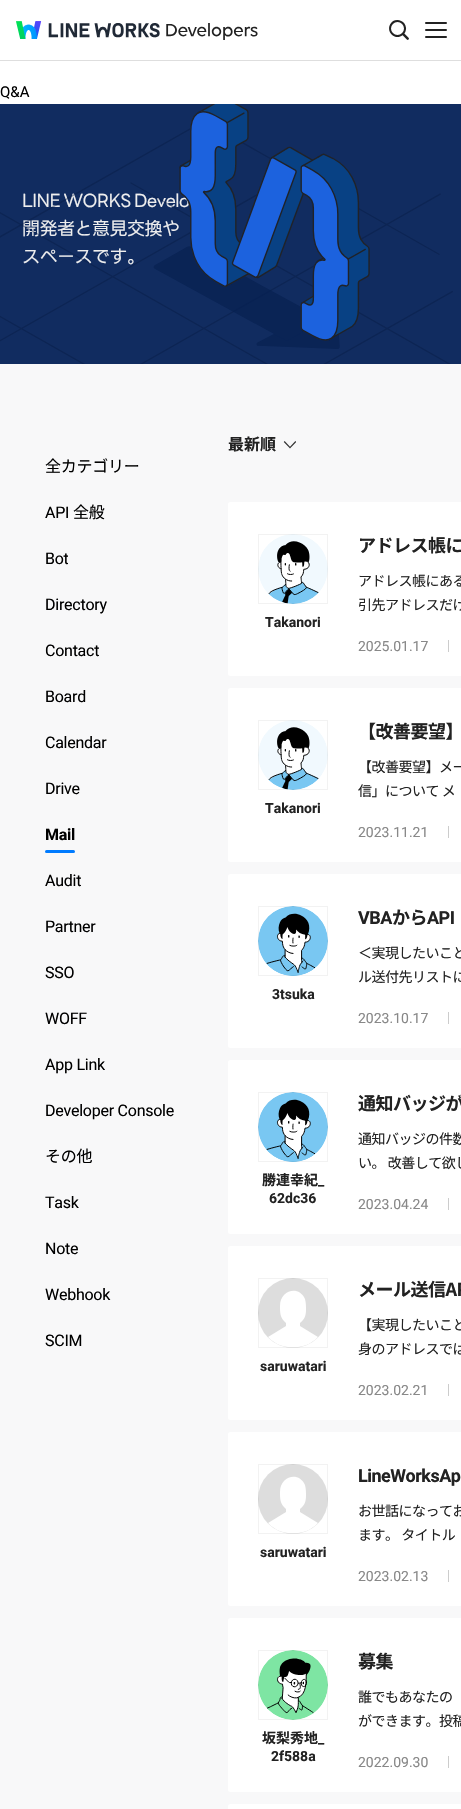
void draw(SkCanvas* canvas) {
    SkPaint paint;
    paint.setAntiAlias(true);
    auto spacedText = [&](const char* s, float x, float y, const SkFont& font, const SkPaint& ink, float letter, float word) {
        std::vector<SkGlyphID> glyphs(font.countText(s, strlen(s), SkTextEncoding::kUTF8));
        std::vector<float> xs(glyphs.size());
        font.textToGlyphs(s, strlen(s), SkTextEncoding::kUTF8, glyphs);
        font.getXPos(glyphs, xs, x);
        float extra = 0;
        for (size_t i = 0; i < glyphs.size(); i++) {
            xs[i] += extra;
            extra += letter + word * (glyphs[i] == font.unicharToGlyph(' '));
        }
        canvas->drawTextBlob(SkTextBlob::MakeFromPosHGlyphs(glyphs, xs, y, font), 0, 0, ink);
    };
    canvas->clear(0xFFFFFFFF);
    paint.setColor(0xFFDEDEDE);
    canvas->drawRect(SkRect::MakeXYWH(0, 60, 461, 1), paint);
    canvas->drawImageRect(SkImages::DeferredFromEncodedData(SkData::MakeFromFileName("img1.png")), SkRect::MakeXYWH(16, 21, 144, 18), SkSamplingOptions());
    canvas->drawImageRect(SkImages::DeferredFromEncodedData(SkData::MakeFromFileName("img2.png")), SkRect::MakeXYWH(166, 23, 92, 17), SkSamplingOptions());
    canvas->drawImageRect(SkImages::DeferredFromEncodedData(SkData::MakeFromFileName("img3.png")), SkRect::MakeXYWH(389, 20, 20, 20), SkSamplingOptions());
    canvas->drawImageRect(SkImages::DeferredFromEncodedData(SkData::MakeFromFileName("img4.png")), SkRect::MakeXYWH(425, 22, 22, 16), SkSamplingOptions());
    SkFont font1(fontMgr->matchFamilyStyle("Roboto", SkFontStyle::Normal()), 15);
    font1.setSubpixel(true);
    paint.setColor(0xFF000000);
    canvas->drawString("Q&A", 0, 97, font1, paint);
    paint.setColor(0xFF112C60);
    canvas->drawRect(SkRect::MakeXYWH(0, 104, 461, 260), paint);
    SkFont font2(fontMgr->matchFamilyStyle("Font", SkFontStyle::Normal()), 18);
    font2.setSubpixel(true);
    paint.setColor(0xFFEEEEEE);
    spacedText("LINE WORKS Develo", 22, 207, font2, paint, -0.5f, 0);
    SkFont font3(fontMgr->matchFamilyStyle("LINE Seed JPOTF", SkFontStyle::Normal()), 18);
    font3.setSubpixel(true);
    spacedText("開発者と意見交換や", 22, 235, font3, paint, -0.5f, 0);
    spacedText("スペースです。", 22, 263, font3, paint, -0.5f, 0);
    canvas->drawImageRect(SkImages::DeferredFromEncodedData(SkData::MakeFromFileName("img5.png")), SkRect::MakeXYWH(0, 104, 453, 260), SkSamplingOptions());
    paint.setColor(0xFFF8F8F9);
    canvas->drawRect(SkRect::MakeXYWH(0, 364, 461, 1445), paint);
    SkFont font4(fontMgr->matchFamilyStyle("Noto Sans CJK JP", SkFontStyle::Normal()), 16);
    font4.setSubpixel(true);
    paint.setColor(0xFF000000);
    spacedText("全カテゴリー", 45, 472, font4, paint, -0.25f, 0);
    SkFont font5(fontMgr->matchFamilyStyle("Roboto", SkFontStyle::Normal()), 16);
    font5.setSubpixel(true);
    spacedText("API", 45, 518, font5, paint, -0.25f, 0);
    spacedText("全般", 73, 518, font4, paint, -0.25f, 0);
    canvas->save();
    canvas->clipRect(SkRect::MakeXYWH(45, 536, 23, 46));
    spacedText("Bot", 45, 564, font5, paint, -0.25f, 0);
    canvas->restore();
    spacedText("Directory", 45, 610, font5, paint, -0.25f, 0);
    spacedText("Contact", 45, 656, font5, paint, -0.25f, 0);
    spacedText("Board", 45, 702, font5, paint, -0.25f, 0);
    spacedText("Calendar", 45, 748, font5, paint, -0.25f, 0);
    spacedText("Drive", 45, 794, font5, paint, -0.25f, 0);
    SkFont font6(fontMgr->matchFamilyStyle("Roboto", SkFontStyle::Bold()), 16);
    font6.setSubpixel(true);
    spacedText("Mail", 45, 840, font6, paint, -0.25f, 0);
    paint.setColor(0xFF007BFF);
    canvas->drawRoundRect(SkRect::MakeXYWH(45, 850, 30, 3), 1.5f, 1.5f, paint);
    paint.setColor(0xFF000000);
    spacedText("Audit", 45, 886, font5, paint, -0.25f, 0);
    spacedText("Partner", 45, 932, font5, paint, -0.25f, 0);
    spacedText("SSO", 45, 978, font5, paint, -0.25f, 0);
    spacedText("WOFF", 45, 1024, font5, paint, -0.25f, 0);
    spacedText("App Link", 45, 1070, font5, paint, -0.25f, 0);
    spacedText("Developer Console", 45, 1116, font5, paint, -0.25f, 0);
    spacedText("その他", 45, 1162, font4, paint, -0.25f, 0);
    spacedText("Task", 45, 1208, font5, paint, -0.25f, 0);
    spacedText("Note", 45, 1254, font5, paint, -0.25f, 0);
    spacedText("Webhook", 45, 1300, font5, paint, -0.25f, 0);
    spacedText("SCIM", 45, 1346, font5, paint, -0.25f, 0);
    SkFont font7(fontMgr->matchFamilyStyle("Noto Sans JP", SkFontStyle::Bold()), 16);
    font7.setSubpixel(true);
    paint.setColor(0xFF222222);
    canvas->drawString("最新順", 228, 450, font7, paint);
    canvas->drawImageRect(SkImages::DeferredFromEncodedData(SkData::MakeFromFileName("img6.png")), SkRect::MakeXYWH(283, 441, 13, 8), SkSamplingOptions());
    paint.setColor(0xFFFFFFFF);
    canvas->drawPath(SkPathBuilder().moveTo(230, 502).lineTo(461, 502).lineTo(461, 676).lineTo(230, 676).cubicTo(229, 676, 228, 675, 228, 674).lineTo(228, 504).cubicTo(228, 503, 229, 502, 230, 502).close().detach(), paint);
    SkFont font8(fontMgr->matchFamilyStyle("Noto Sans JP", SkFontStyle::Bold()), 18);
    font8.setSubpixel(true);
    paint.setColor(0xFF222222);
    spacedText("アドレス帳に", 358, 552, font8, paint, -0.5f, 0);
    SkFont font9(fontMgr->matchFamilyStyle("Noto Sans CJK JP", SkFontStyle::Normal()), 14);
    font9.setSubpixel(true);
    spacedText("アドレス帳にある", 358, 586, font9, paint, -0.5f, 0);
    spacedText("引先アドレスだけ", 358, 610, font9, paint, -0.5f, 0);
    canvas->drawImageRect(SkImages::DeferredFromEncodedData(SkData::MakeFromFileName("img7.png")), SkRect::MakeXYWH(258, 534, 70, 70), SkSamplingOptions());
    paint.setStyle(SkPaint::kStroke_Style);
    paint.setStrokeWidth(1);
    paint.setColor(0x0D000000);
    canvas->drawRect(SkRect::MakeXYWH(258.5f, 534.5f, 69, 69), paint);
    SkFont font10(fontMgr->matchFamilyStyle("Roboto", SkFontStyle::Bold()), 14);
    font10.setSubpixel(true);
    paint.setStyle(SkPaint::kFill_Style);
    paint.setColor(0xFF222222);
    canvas->drawString("Takanori", 265, 627, font10, paint);
    SkFont font11(fontMgr->matchFamilyStyle("Roboto", SkFontStyle::Normal()), 14);
    font11.setSubpixel(true);
    paint.setColor(0xFF888888);
    canvas->drawString("2025.01.17", 358, 651, font11, paint);
    paint.setColor(0xFFCCCCCC);
    canvas->drawRect(SkRect::MakeXYWH(448, 640, 1, 12), paint);
    paint.setColor(0xFFFFFFFF);
    canvas->drawPath(SkPathBuilder().moveTo(230, 688).lineTo(461, 688).lineTo(461, 862).lineTo(230, 862).cubicTo(229, 862, 228, 861, 228, 860).lineTo(228, 690).cubicTo(228, 689, 229, 688, 230, 688).close().detach(), paint);
    paint.setColor(0xFF222222);
    spacedText("【改善要望】", 358, 738, font8, paint, -0.5f, 0);
    spacedText("【改善要望】メー", 358, 772, font9, paint, -0.5f, 0);
    spacedText("信」について メ", 358, 796, font9, paint, -0.5f, 0);
    canvas->drawImageRect(SkImages::DeferredFromEncodedData(SkData::MakeFromFileName("img8.png")), SkRect::MakeXYWH(258, 720, 70, 70), SkSamplingOptions());
    paint.setStyle(SkPaint::kStroke_Style);
    paint.setColor(0x0D000000);
    canvas->drawRect(SkRect::MakeXYWH(258.5f, 720.5f, 69, 69), paint);
    paint.setStyle(SkPaint::kFill_Style);
    paint.setColor(0xFF222222);
    canvas->drawString("Takanori", 265, 813, font10, paint);
    paint.setColor(0xFF888888);
    canvas->drawString("2023.11.21", 358, 837, font11, paint);
    paint.setColor(0xFFCCCCCC);
    canvas->drawRect(SkRect::MakeXYWH(448, 826, 1, 12), paint);
    paint.setColor(0xFFFFFFFF);
    canvas->drawPath(SkPathBuilder().moveTo(230, 874).lineTo(461, 874).lineTo(461, 1048).lineTo(230, 1048).cubicTo(229, 1048, 228, 1047, 228, 1046).lineTo(228, 876).cubicTo(228, 875, 229, 874, 230, 874).close().detach(), paint);
    SkFont font12(fontMgr->matchFamilyStyle("Roboto", SkFontStyle::Bold()), 18);
    font12.setSubpixel(true);
    paint.setColor(0xFF222222);
    spacedText("VBA", 358, 924, font12, paint, -0.5f, 0);
    spacedText("から", 392, 924, font8, paint, -0.5f, 0);
    spacedText("API", 427, 924, font12, paint, -0.5f, 0);
    spacedText("＜実現したいこと", 358, 958, font9, paint, -0.5f, 0);
    spacedText("ル送付先リストに", 358, 982, font9, paint, -0.5f, 0);
    canvas->drawImageRect(SkImages::DeferredFromEncodedData(SkData::MakeFromFileName("img9.png")), SkRect::MakeXYWH(258, 906, 70, 70), SkSamplingOptions());
    paint.setStyle(SkPaint::kStroke_Style);
    paint.setColor(0x0D000000);
    canvas->drawRect(SkRect::MakeXYWH(258.5f, 906.5f, 69, 69), paint);
    paint.setStyle(SkPaint::kFill_Style);
    paint.setColor(0xFF222222);
    canvas->drawString("3tsuka", 272, 999, font10, paint);
    paint.setColor(0xFF888888);
    canvas->drawString("2023.10.17", 358, 1023, font11, paint);
    paint.setColor(0xFFCCCCCC);
    canvas->drawRect(SkRect::MakeXYWH(448, 1012, 1, 12), paint);
    paint.setColor(0xFFFFFFFF);
    canvas->drawPath(SkPathBuilder().moveTo(230, 1060).lineTo(461, 1060).lineTo(461, 1234).lineTo(230, 1234).cubicTo(229, 1234, 228, 1233, 228, 1232).lineTo(228, 1062).cubicTo(228, 1061, 229, 1060, 230, 1060).close().detach(), paint);
    paint.setColor(0xFF222222);
    spacedText("通知バッジが", 358, 1110, font8, paint, -0.5f, 0);
    spacedText("通知バッジの件数", 358, 1144, font9, paint, -0.5f, 0);
    spacedText("い。 改善して欲し", 358, 1168, font9, paint, -0.5f, 0);
    canvas->drawImageRect(SkImages::DeferredFromEncodedData(SkData::MakeFromFileName("img9.png")), SkRect::MakeXYWH(258, 1092, 70, 70), SkSamplingOptions());
    paint.setStyle(SkPaint::kStroke_Style);
    paint.setColor(0x0D000000);
    canvas->drawRect(SkRect::MakeXYWH(258.5f, 1092.5f, 69, 69), paint);
    SkFont font13(fontMgr->matchFamilyStyle("Noto Sans JP", SkFontStyle::Bold()), 14);
    font13.setSubpixel(true);
    paint.setStyle(SkPaint::kFill_Style);
    paint.setColor(0xFF222222);
    canvas->drawString("勝連幸紀", 262, 1185, font13, paint);
    canvas->drawString("_", 318, 1185, font10, paint);
    canvas->drawString("62dc36", 269, 1203, font10, paint);
    paint.setColor(0xFF888888);
    canvas->drawString("2023.04.24", 358, 1209, font11, paint);
    paint.setColor(0xFFCCCCCC);
    canvas->drawRect(SkRect::MakeXYWH(448, 1198, 1, 12), paint);
    paint.setColor(0xFFFFFFFF);
    canvas->drawPath(SkPathBuilder().moveTo(230, 1246).lineTo(461, 1246).lineTo(461, 1420).lineTo(230, 1420).cubicTo(229, 1420, 228, 1419, 228, 1418).lineTo(228, 1248).cubicTo(228, 1247, 229, 1246, 230, 1246).close().detach(), paint);
    paint.setColor(0xFF222222);
    spacedText("メール送信AP", 358, 1296, font8, paint, -0.5f, 0);
    spacedText("【実現したいこと", 358, 1330, font9, paint, -0.5f, 0);
    spacedText("身のアドレスでは", 358, 1354, font9, paint, -0.5f, 0);
    paint.setColor(0xFFDDDDDD);
    canvas->drawCircle(293, 1313, 35, paint);
    paint.setColor(0xFFFFFFFF);
    canvas->drawPath(SkPathBuilder().moveTo(318, 1337).cubicTo(305, 1351, 281, 1351, 268, 1337).lineTo(286, 1326).lineTo(286, 1323).cubicTo(280, 1318, 280, 1313, 280, 1306).cubicTo(280, 1290, 299, 1285, 305, 1299).cubicTo(306, 1303, 306, 1306, 306, 1310).cubicTo(306, 1315, 305, 1319, 300, 1323).lineTo(300, 1326).close().detach(), paint);
    paint.setStyle(SkPaint::kStroke_Style);
    paint.setColor(0x0D000000);
    canvas->drawRect(SkRect::MakeXYWH(258.5f, 1278.5f, 69, 69), paint);
    paint.setStyle(SkPaint::kFill_Style);
    paint.setColor(0xFF222222);
    canvas->drawString("saruwatari", 260, 1371, font10, paint);
    paint.setColor(0xFF888888);
    canvas->drawString("2023.02.21", 358, 1395, font11, paint);
    paint.setColor(0xFFCCCCCC);
    canvas->drawRect(SkRect::MakeXYWH(448, 1384, 1, 12), paint);
    paint.setColor(0xFFFFFFFF);
    canvas->drawPath(SkPathBuilder().moveTo(230, 1432).lineTo(461, 1432).lineTo(461, 1606).lineTo(230, 1606).cubicTo(229, 1606, 228, 1605, 228, 1604).lineTo(228, 1434).cubicTo(228, 1433, 229, 1432, 230, 1432).close().detach(), paint);
    paint.setColor(0xFF222222);
    spacedText("LineWorksAp", 358, 1482, font12, paint, -0.5f, 0);
    spacedText("お世話になってお", 358, 1516, font9, paint, -0.5f, 0);
    spacedText("ます。 タイトル", 358, 1540, font9, paint, -0.5f, 0);
    paint.setColor(0xFFDDDDDD);
    canvas->drawCircle(293, 1499, 35, paint);
    paint.setColor(0xFFFFFFFF);
    canvas->drawPath(SkPathBuilder().moveTo(318, 1523).cubicTo(305, 1537, 281, 1537, 268, 1523).lineTo(286, 1512).lineTo(286, 1509).cubicTo(280, 1504, 280, 1499, 280, 1492).cubicTo(280, 1476, 299, 1471, 305, 1485).cubicTo(306, 1489, 306, 1492, 306, 1496).cubicTo(306, 1501, 305, 1505, 300, 1509).lineTo(300, 1512).close().detach(), paint);
    paint.setStyle(SkPaint::kStroke_Style);
    paint.setColor(0x0D000000);
    canvas->drawRect(SkRect::MakeXYWH(258.5f, 1464.5f, 69, 69), paint);
    paint.setStyle(SkPaint::kFill_Style);
    paint.setColor(0xFF222222);
    canvas->drawString("saruwatari", 260, 1557, font10, paint);
    paint.setColor(0xFF888888);
    canvas->drawString("2023.02.13", 358, 1581, font11, paint);
    paint.setColor(0xFFCCCCCC);
    canvas->drawRect(SkRect::MakeXYWH(448, 1570, 1, 12), paint);
    paint.setColor(0xFFFFFFFF);
    canvas->drawPath(SkPathBuilder().moveTo(230, 1618).lineTo(461, 1618).lineTo(461, 1792).lineTo(230, 1792).cubicTo(229, 1792, 228, 1791, 228, 1790).lineTo(228, 1620).cubicTo(228, 1619, 229, 1618, 230, 1618).close().detach(), paint);
    paint.setColor(0xFF222222);
    spacedText("募集", 358, 1668, font8, paint, -0.5f, 0);
    spacedText("誰でもあなたの", 358, 1702, font9, paint, -0.5f, 0);
    spacedText("ができます。投稿", 358, 1726, font9, paint, -0.5f, 0);
    canvas->drawImageRect(SkImages::DeferredFromEncodedData(SkData::MakeFromFileName("img10.png")), SkRect::MakeXYWH(258, 1650, 70, 70), SkSamplingOptions());
    paint.setStyle(SkPaint::kStroke_Style);
    paint.setColor(0x0D000000);
    canvas->drawRect(SkRect::MakeXYWH(258.5f, 1650.5f, 69, 69), paint);
    paint.setStyle(SkPaint::kFill_Style);
    paint.setColor(0xFF222222);
    canvas->drawString("坂梨秀地", 262, 1743, font13, paint);
    canvas->drawString("_", 318, 1743, font10, paint);
    canvas->drawString("2f588a", 271, 1761, font10, paint);
    paint.setColor(0xFF888888);
    canvas->drawString("2022.09.30", 358, 1767, font11, paint);
    paint.setColor(0xFFCCCCCC);
    canvas->drawRect(SkRect::MakeXYWH(448, 1756, 1, 12), paint);
    paint.setColor(0xFFFFFFFF);
    canvas->drawPath(SkPathBuilder().moveTo(230, 1804).lineTo(461, 1804).lineTo(461, 1809).lineTo(228, 1809).lineTo(228, 1806).cubicTo(228, 1805, 229, 1804, 230, 1804).close().detach(), paint);
}
